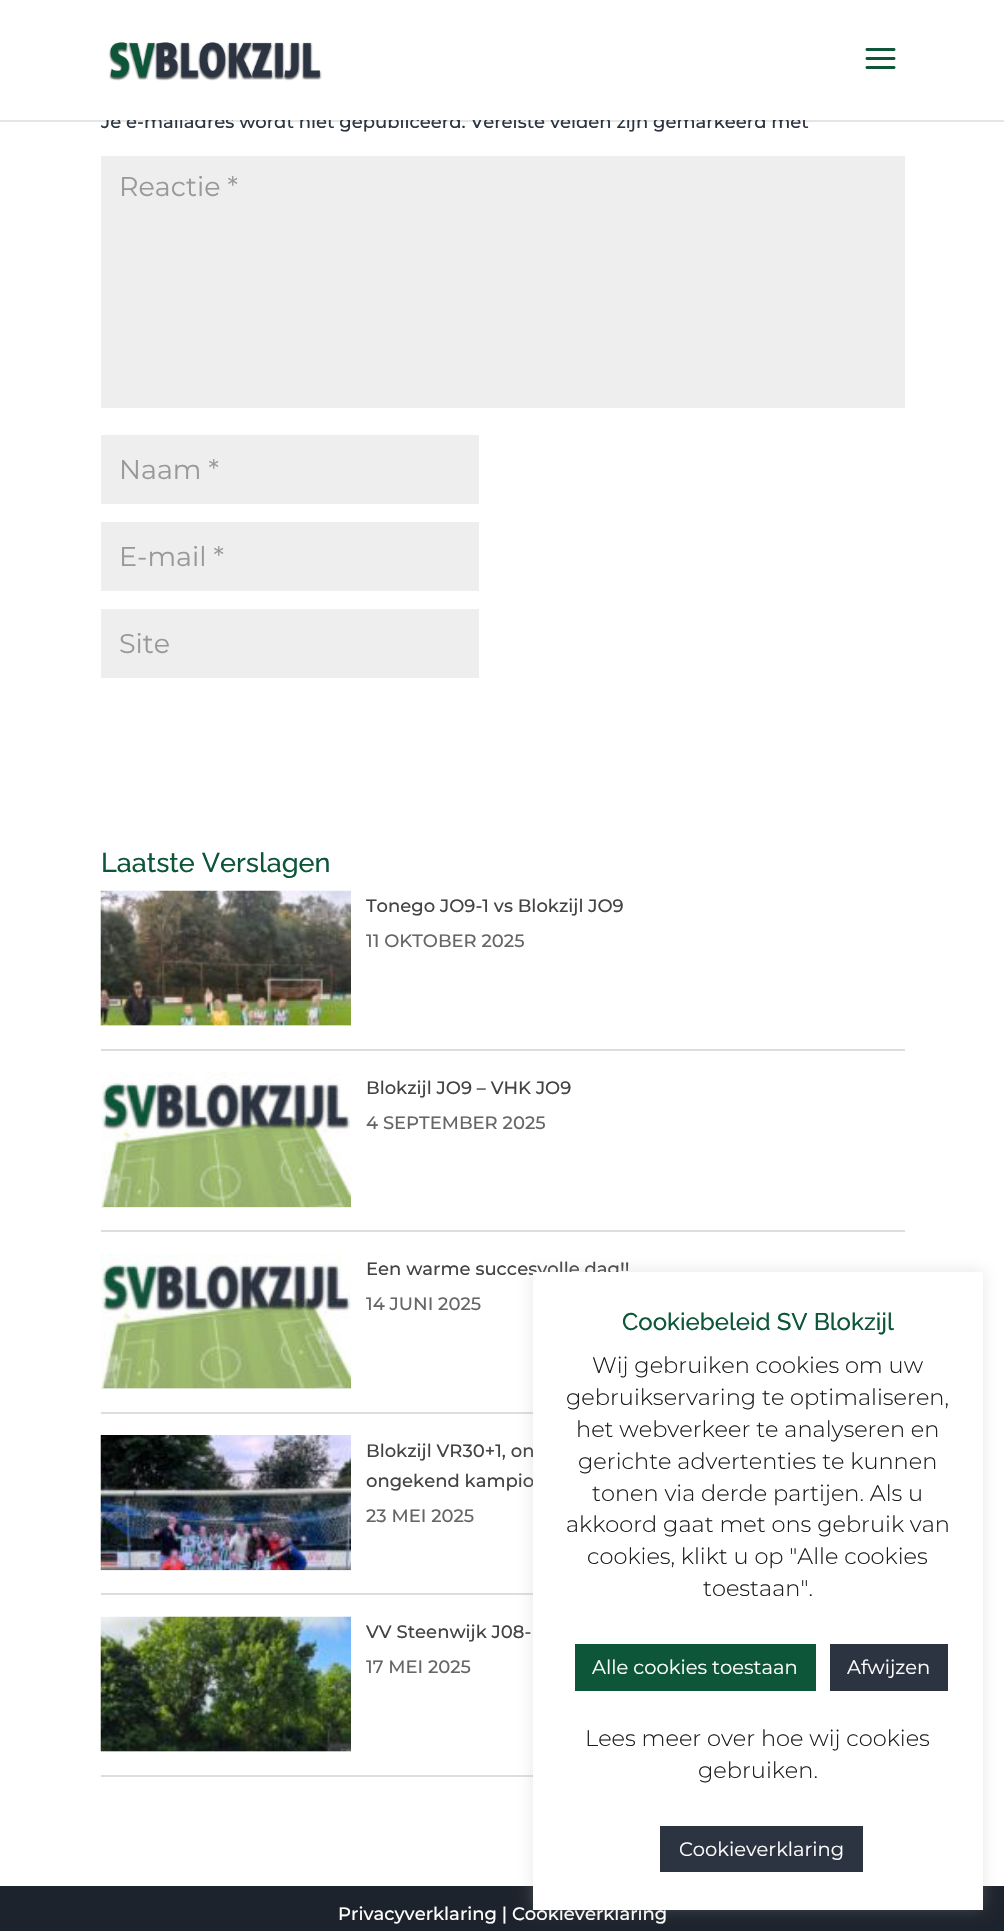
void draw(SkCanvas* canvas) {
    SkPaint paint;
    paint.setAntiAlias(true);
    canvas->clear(0xFFFFFFFF);
    paint.setColor(0x1A000000);
    canvas->drawRect(SkRect::MakeXYWH(0, 120, 1004, 2), paint);
    SkFont font1(fontMgr->matchFamilyStyle("Montserrat", SkFontStyle(500, SkFontStyle::kNormal_Width, SkFontStyle::kUpright_Slant)), 18);
    font1.setSubpixel(true);
    paint.setColor(0xFF2B3440);
    canvas->drawString("Je e-mailadres wordt niet gepubliceerd. Vereiste velden zijn gemarkeerd met", 101, 128, font1, paint);
    paint.setColor(0xFFFFFFFF);
    canvas->drawRect(SkRect::MakeXYWH(101, 114, 707, 6), paint);
    canvas->drawImageRect(SkImages::DeferredFromEncodedData(SkData::MakeFromFileName("img1.png")), SkRect::MakeXYWH(108, 42, 214, 39), SkSamplingOptions());
    canvas->drawImageRect(SkImages::DeferredFromEncodedData(SkData::MakeFromFileName("img2.png")), SkRect::MakeXYWH(865, 48, 31, 21), SkSamplingOptions());
    paint.setColor(0xFFEEEEEE);
    canvas->drawRect(SkRect::MakeXYWH(101, 156, 804, 252), paint);
    SkFont font2(fontMgr->matchFamilyStyle("Montserrat", SkFontStyle::Normal()), 27);
    font2.setSubpixel(true);
    paint.setColor(0xFF999999);
    canvas->drawString("Reactie *", 119, 196, font2, paint);
    paint.setColor(0xFFEEEEEE);
    canvas->drawRect(SkRect::MakeXYWH(101, 435, 378, 69), paint);
    paint.setColor(0xFF999999);
    canvas->drawString("Naam *", 119, 479, font2, paint);
    paint.setColor(0xFFEEEEEE);
    canvas->drawRect(SkRect::MakeXYWH(101, 522, 378, 69), paint);
    paint.setColor(0xFF999999);
    canvas->drawString("E-mail *", 119, 566, font2, paint);
    paint.setColor(0xFFEEEEEE);
    canvas->drawRect(SkRect::MakeXYWH(101, 609, 378, 69), paint);
    paint.setColor(0xFF999999);
    canvas->drawString("Site", 119, 653, font2, paint);
    SkFont font3(fontMgr->matchFamilyStyle("Raleway", SkFontStyle(500, SkFontStyle::kNormal_Width, SkFontStyle::kUpright_Slant)), 27);
    font3.setSubpixel(true);
    paint.setColor(0xFF0D5639);
    canvas->drawString("Laatste Verslagen", 101, 872, font3, paint);
    paint.setColor(0xFFDDDDDD);
    canvas->drawRect(SkRect::MakeXYWH(101, 1049, 804, 2), paint);
    paint.setColor(0xFFF1F1F1);
    canvas->drawRect(SkRect::MakeXYWH(101, 1025, 250, 1), paint);
    canvas->drawImageRect(SkImages::DeferredFromEncodedData(SkData::MakeFromFileName("img3.png")), SkRect::MakeXYWH(100, 890, 251, 136), SkSamplingOptions());
    paint.setColor(0xFF444444);
    canvas->drawString("Tonego JO9-1 vs Blokzijl JO9", 366, 912, font1, paint);
    paint.setColor(0xFF666666);
    canvas->drawString("11 OKTOBER 2025", 366, 947, font1, paint);
    paint.setColor(0xFFDDDDDD);
    canvas->drawRect(SkRect::MakeXYWH(101, 1230, 804, 2), paint);
    paint.setColor(0xFFF1F1F1);
    canvas->drawRect(SkRect::MakeXYWH(101, 1207, 250, 1), paint);
    canvas->drawImageRect(SkImages::DeferredFromEncodedData(SkData::MakeFromFileName("img4.png")), SkRect::MakeXYWH(101, 1072, 250, 135), SkSamplingOptions());
    paint.setColor(0xFF444444);
    canvas->drawString("Blokzijl JO9 – VHK JO9", 366, 1094, font1, paint);
    paint.setColor(0xFF666666);
    canvas->drawString("4 SEPTEMBER 2025", 366, 1129, font1, paint);
    paint.setColor(0xFFDDDDDD);
    canvas->drawRect(SkRect::MakeXYWH(101, 1412, 432, 2), paint);
    paint.setColor(0xFFF1F1F1);
    canvas->drawRect(SkRect::MakeXYWH(101, 1388, 250, 1), paint);
    canvas->drawImageRect(SkImages::DeferredFromEncodedData(SkData::MakeFromFileName("img5.png")), SkRect::MakeXYWH(100, 1254, 251, 135), SkSamplingOptions());
    paint.setColor(0xFF444444);
    canvas->drawString("Een warme succesvolle dag!!", 366, 1275, font1, paint);
    paint.setColor(0xFF666666);
    canvas->drawString("14 JUNI 2025", 366, 1310, font1, paint);
    paint.setColor(0xFFDDDDDD);
    canvas->drawRect(SkRect::MakeXYWH(101, 1593, 432, 2), paint);
    paint.setColor(0xFFF1F1F1);
    canvas->drawRect(SkRect::MakeXYWH(101, 1570, 250, 1), paint);
    canvas->drawImageRect(SkImages::DeferredFromEncodedData(SkData::MakeFromFileName("img6.png")), SkRect::MakeXYWH(100, 1435, 251, 135), SkSamplingOptions());
    paint.setColor(0xFF444444);
    canvas->drawString("Blokzijl VR30+1, on", 366, 1457, font1, paint);
    canvas->drawString("ongekend kampio", 366, 1487, font1, paint);
    paint.setColor(0xFF666666);
    canvas->drawString("23 MEI 2025", 366, 1522, font1, paint);
    paint.setColor(0xFFDDDDDD);
    canvas->drawRect(SkRect::MakeXYWH(101, 1775, 432, 2), paint);
    paint.setColor(0xFFF1F1F1);
    canvas->drawRect(SkRect::MakeXYWH(101, 1751, 250, 1), paint);
    canvas->drawImageRect(SkImages::DeferredFromEncodedData(SkData::MakeFromFileName("img7.png")), SkRect::MakeXYWH(100, 1616, 251, 136), SkSamplingOptions());
    paint.setColor(0xFF444444);
    canvas->drawString("VV Steenwijk J08-", 366, 1638, font1, paint);
    paint.setColor(0xFF666666);
    canvas->drawString("17 MEI 2025", 366, 1673, font1, paint);
    paint.setColor(0xFF1D232C);
    canvas->drawRect(SkRect::MakeXYWH(0, 1886, 1004, 45), paint);
    paint.setColor(0xFFFFFFFF);
    canvas->drawString("Privacyverklaring | Cookieverklaring", 338, 1920, font1, paint);
    paint.setColor(0x4DACABAB);
    paint.setMaskFilter(SkMaskFilter::MakeBlur(kNormal_SkBlurStyle, 7.5f));
    canvas->drawRect(SkRect::MakeXYWH(533, 1271, 450, 637), paint);
    paint.setMaskFilter(nullptr);
    paint.setColor(0xFFFFFFFF);
    canvas->drawRect(SkRect::MakeXYWH(533, 1272, 450, 638), paint);
    SkFont font4(fontMgr->matchFamilyStyle("Raleway", SkFontStyle(500, SkFontStyle::kNormal_Width, SkFontStyle::kUpright_Slant)), 24);
    font4.setSubpixel(true);
    paint.setColor(0xFF0D5639);
    canvas->drawString("Cookiebeleid SV Blokzijl", 622, 1330, font4, paint);
    SkFont font5(fontMgr->matchFamilyStyle("Montserrat", SkFontStyle(300, SkFontStyle::kNormal_Width, SkFontStyle::kUpright_Slant)), 22.5f);
    font5.setSubpixel(true);
    paint.setColor(0xFF1D1D1B);
    canvas->drawString("Wij gebruiken cookies om uw", 592, 1373, font5, paint);
    canvas->drawString("gebruikservaring te optimaliseren,", 566, 1405, font5, paint);
    canvas->drawString("het webverkeer te analyseren en", 576, 1437, font5, paint);
    canvas->drawString("gerichte advertenties te kunnen", 578, 1469, font5, paint);
    canvas->drawString("tonen via derde partijen. Als u", 592, 1501, font5, paint);
    canvas->drawString("akkoord gaat met ons gebruik van", 566, 1532, font5, paint);
    canvas->drawString("cookies, klikt u op \"Alle cookies", 587, 1564, font5, paint);
    canvas->drawString("toestaan\".", 703, 1596, font5, paint);
    paint.setColor(0xFF0D5639);
    canvas->drawRect(SkRect::MakeXYWH(575, 1644, 241, 47), paint);
    SkFont font6(fontMgr->matchFamilyStyle("Montserrat", SkFontStyle::Normal()), 19.5f);
    font6.setSubpixel(true);
    paint.setColor(0xFFFFFFFF);
    canvas->drawString("Alle cookies toestaan", 592, 1674, font6, paint);
    paint.setColor(0xFF2B3440);
    canvas->drawRect(SkRect::MakeXYWH(830, 1644, 118, 47), paint);
    paint.setColor(0xFFFFFFFF);
    canvas->drawString("Afwijzen", 847, 1674, font6, paint);
    paint.setColor(0xFF1D1D1B);
    canvas->drawString("Lees meer over hoe wij cookies", 585, 1746, font5, paint);
    canvas->drawString("gebruiken.", 698, 1778, font5, paint);
    paint.setColor(0xFF2B3440);
    canvas->drawRect(SkRect::MakeXYWH(660, 1826, 203, 46), paint);
    paint.setColor(0xFFFFFFFF);
    canvas->drawString("Cookieverklaring", 679, 1856, font6, paint);
}
